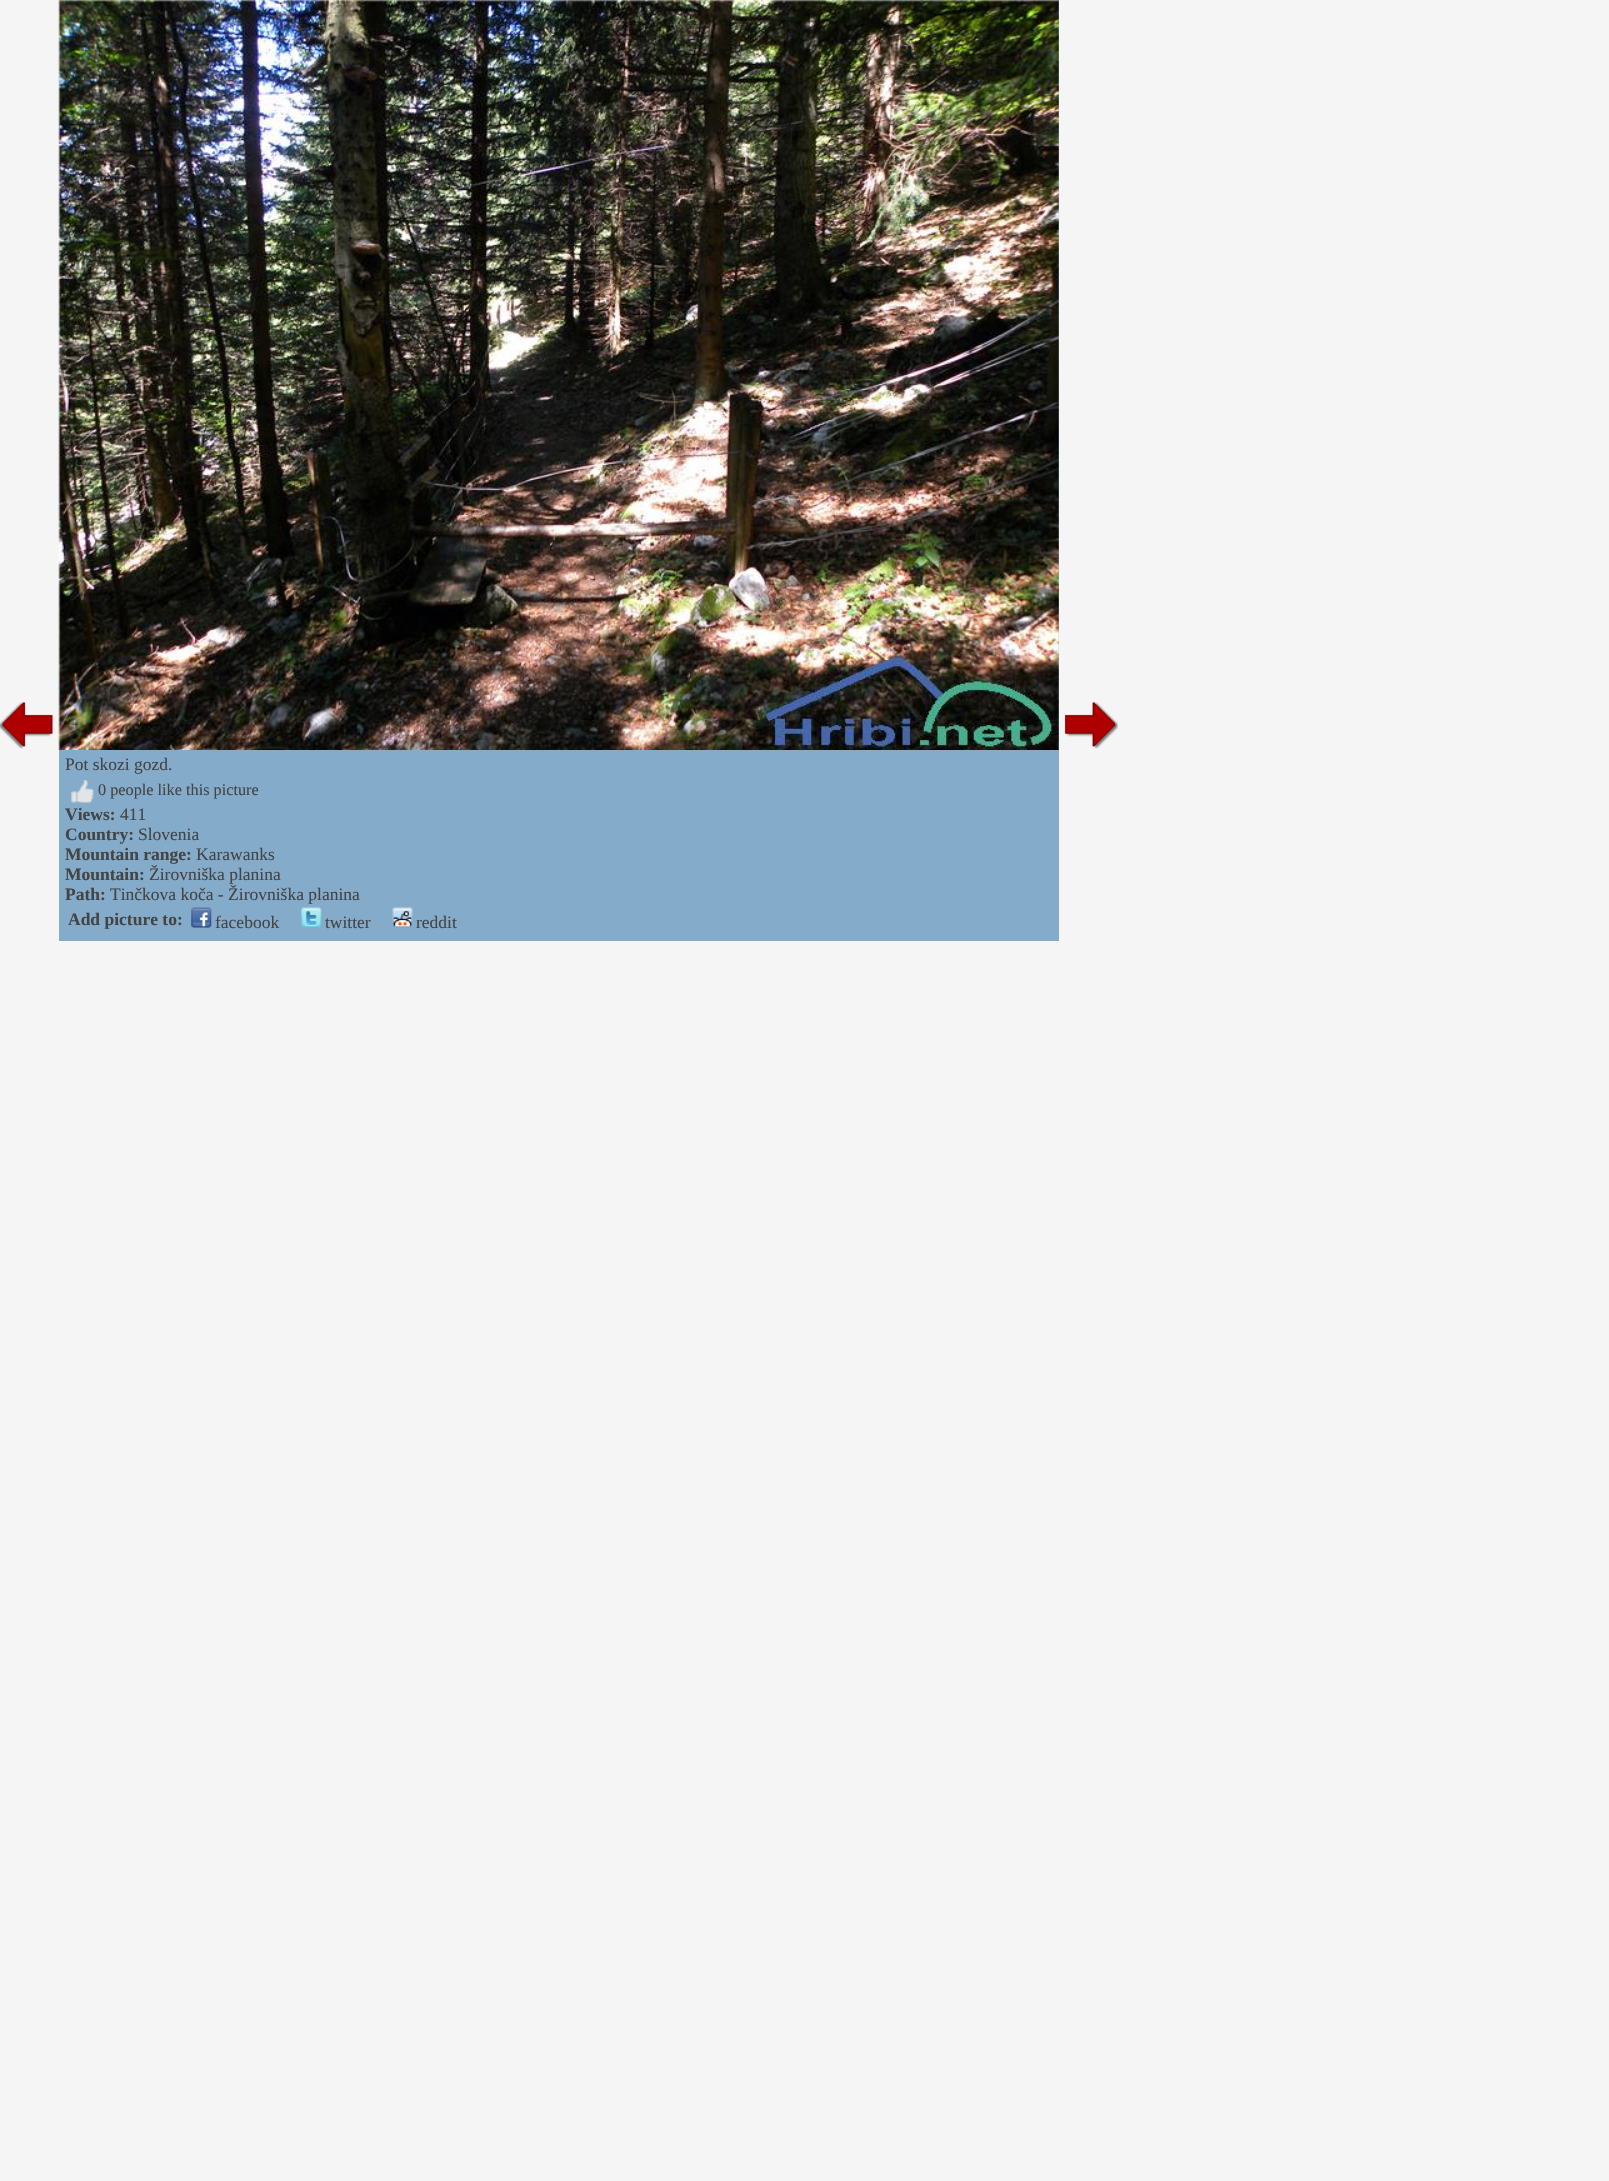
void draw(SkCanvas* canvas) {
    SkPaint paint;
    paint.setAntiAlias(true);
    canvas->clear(0xFFF5F5F5);
    canvas->drawImageRect(SkImages::DeferredFromEncodedData(SkData::MakeFromFileName("img1.png")), SkRect::MakeXYWH(0, 702, 53, 47), SkSamplingOptions());
    canvas->drawImageRect(SkImages::DeferredFromEncodedData(SkData::MakeFromFileName("img2.png")), SkRect::MakeXYWH(1064, 702, 54, 47), SkSamplingOptions());
    paint.setColor(0xFF85ABCA);
    canvas->drawRect(SkRect::MakeXYWH(59, 0, 1000, 941), paint);
    canvas->drawImageRect(SkImages::DeferredFromEncodedData(SkData::MakeFromFileName("img3.png")), SkRect::MakeXYWH(58, 0, 1001, 750), SkSamplingOptions());
    SkFont font1(fontMgr->matchFamilyStyle("Liberation Serif", SkFontStyle::Normal()), 17.5f);
    font1.setSubpixel(true);
    paint.setColor(0xFF444444);
    canvas->drawString("Pot skozi gozd.", 65, 770, font1, paint);
    canvas->drawImageRect(SkImages::DeferredFromEncodedData(SkData::MakeFromFileName("img4.png")), SkRect::MakeXYWH(71, 780, 23, 23), SkSamplingOptions());
    SkFont font2(fontMgr->matchFamilyStyle("Liberation Serif", SkFontStyle::Normal()), 16.25f);
    font2.setSubpixel(true);
    canvas->drawString("0 people like this picture", 98, 795, font2, paint);
    SkFont font3(fontMgr->matchFamilyStyle("Liberation Serif", SkFontStyle::Bold()), 17.5f);
    font3.setSubpixel(true);
    canvas->drawString("Views:", 65, 820, font3, paint);
    canvas->drawString("411", 120, 820, font1, paint);
    canvas->drawString("Country:", 65, 840, font3, paint);
    canvas->drawString("Slovenia", 138, 840, font1, paint);
    canvas->drawString("Mountain range:", 65, 860, font3, paint);
    canvas->drawString("Karawanks", 196, 860, font1, paint);
    canvas->drawString("Mountain:", 65, 880, font3, paint);
    canvas->drawString("Žirovniška planina", 149, 880, font1, paint);
    canvas->drawString("Path:", 65, 900, font3, paint);
    canvas->drawString("Tinčkova koča - Žirovniška planina", 110, 900, font1, paint);
    canvas->drawString("Add picture to:", 68, 925, font3, paint);
    canvas->drawImageRect(SkImages::DeferredFromEncodedData(SkData::MakeFromFileName("img5.png")), SkRect::MakeXYWH(191, 907, 21, 21), SkSamplingOptions());
    canvas->drawString("facebook", 215, 928, font1, paint);
    canvas->drawImageRect(SkImages::DeferredFromEncodedData(SkData::MakeFromFileName("img6.png")), SkRect::MakeXYWH(301, 907, 21, 21), SkSamplingOptions());
    canvas->drawString("twitter", 325, 928, font1, paint);
    canvas->drawImageRect(SkImages::DeferredFromEncodedData(SkData::MakeFromFileName("img7.png")), SkRect::MakeXYWH(392, 907, 21, 21), SkSamplingOptions());
    canvas->drawString("reddit", 416, 928, font1, paint);
}
